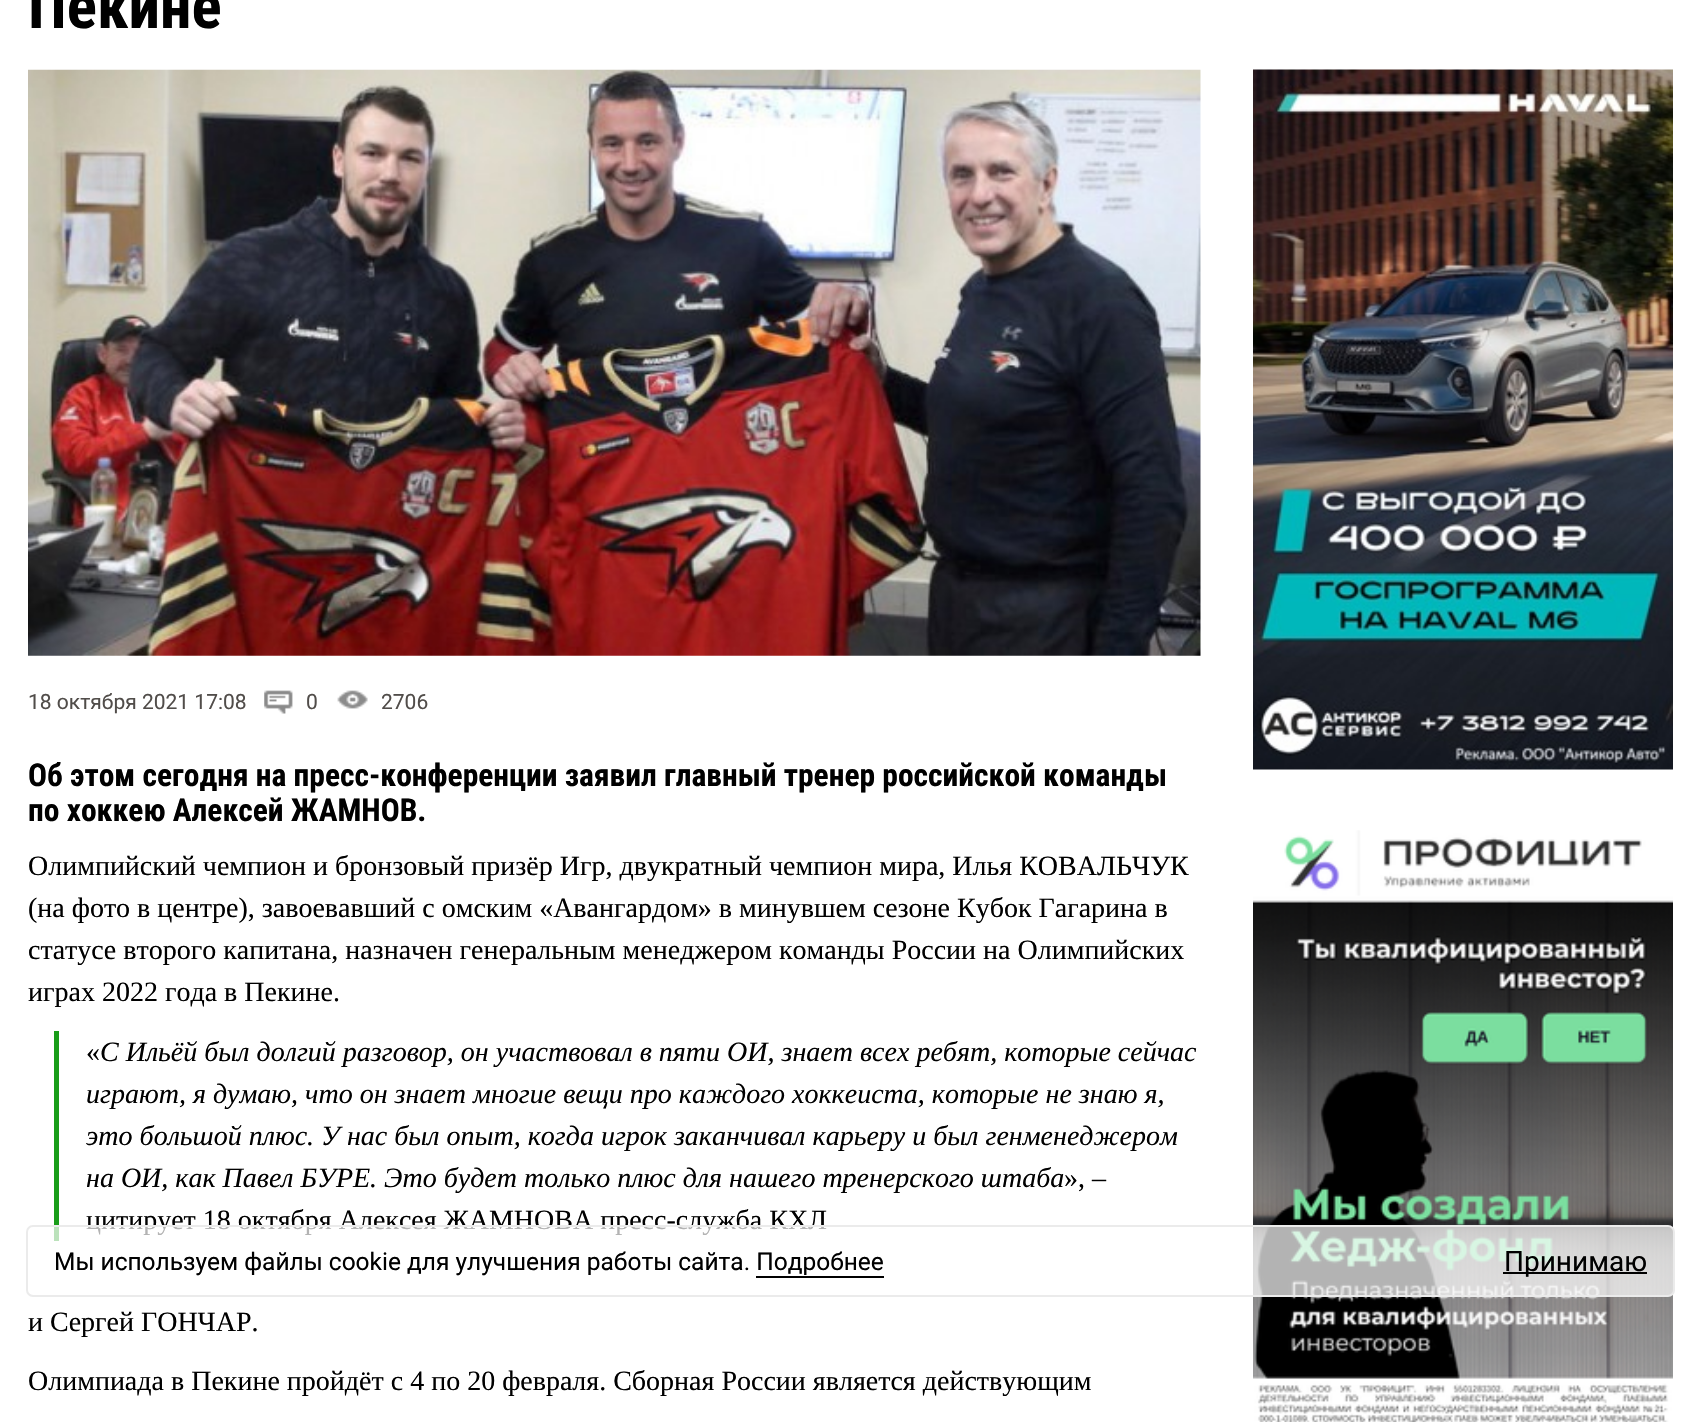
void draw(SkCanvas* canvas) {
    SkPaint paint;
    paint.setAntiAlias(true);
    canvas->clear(0xFFFFFFFF);
    SkFont font1(fontMgr->matchFamilyStyle("Roboto Condensed", SkFontStyle::Bold()), 63);
    font1.setSubpixel(true);
    paint.setColor(0xFF000000);
    canvas->drawString("Пекине", 28, 28, font1, paint);
    canvas->drawImageRect(SkImages::DeferredFromEncodedData(SkData::MakeFromFileName("img1.png")), SkRect::MakeXYWH(28, 69, 1173, 587), SkSamplingOptions());
    SkFont font2(fontMgr->matchFamilyStyle("Roboto", SkFontStyle::Normal()), 21);
    font2.setSubpixel(true);
    paint.setColor(0xFF514D4A);
    canvas->drawString("18 октября 2021 17:08", 28, 709, font2, paint);
    canvas->drawImageRect(SkImages::DeferredFromEncodedData(SkData::MakeFromFileName("img2.png")), SkRect::MakeXYWH(264, 690, 29, 24), SkSamplingOptions());
    canvas->drawString("0", 306, 709, font2, paint);
    canvas->drawImageRect(SkImages::DeferredFromEncodedData(SkData::MakeFromFileName("img3.png")), SkRect::MakeXYWH(337, 690, 31, 19), SkSamplingOptions());
    canvas->drawString("2706", 381, 709, font2, paint);
    SkFont font3(fontMgr->matchFamilyStyle("Roboto Condensed", SkFontStyle::Bold()), 31.5f);
    font3.setSubpixel(true);
    paint.setColor(0xFF000000);
    canvas->drawString("Об этом сегодня на пресс-конференции заявил главный тренер российской команды", 28, 786, font3, paint);
    canvas->drawString("по хоккею Алексей ЖАМНОВ.", 28, 821, font3, paint);
    SkFont font4(fontMgr->matchFamilyStyle("Liberation Serif", SkFontStyle::Normal()), 28);
    font4.setSubpixel(true);
    canvas->drawString("Олимпийский чемпион и бронзовый призёр Игр, двукратный чемпион мира, Илья КОВАЛЬЧУК", 28, 875, font4, paint);
    canvas->drawString("(на фото в центре), завоевавший с омским «Авангардом» в минувшем сезоне Кубок Гагарина в", 28, 917, font4, paint);
    canvas->drawString("статусе второго капитана, назначен генеральным менеджером команды России на Олимпийских", 28, 959, font4, paint);
    canvas->drawString("играх 2022 года в Пекине.", 28, 1001, font4, paint);
    paint.setColor(0xFF199D19);
    canvas->drawRect(SkRect::MakeXYWH(54, 1031, 5, 210), paint);
    paint.setColor(0xFF000000);
    canvas->drawString("«", 86, 1061, font4, paint);
    SkFont font5(fontMgr->matchFamilyStyle("Liberation Serif", SkFontStyle::Italic()), 28);
    font5.setSubpixel(true);
    canvas->drawString("С Ильёй был долгий разговор, он участвовал в пяти ОИ, знает всех ребят, которые сейчас", 100, 1061, font5, paint);
    canvas->drawString("играют, я думаю, что он знает многие вещи про каждого хоккеиста, которые не знаю я,", 86, 1103, font5, paint);
    canvas->drawString("это большой плюс. У нас был опыт, когда игрок заканчивал карьеру и был генменеджером", 86, 1145, font5, paint);
    canvas->drawString("на ОИ, как Павел БУРЕ. Это будет только плюс для нашего тренерского штаба", 86, 1187, font5, paint);
    canvas->drawString("», –", 1064, 1187, font4, paint);
    canvas->drawString("цитирует 18 октября Алексея ЖАМНОВА пресс-служба КХЛ", 86, 1229, font4, paint);
    canvas->drawString("и Сергей ГОНЧАР.", 28, 1331, font4, paint);
    canvas->drawString("Олимпиада в Пекине пройдёт с 4 по 20 февраля. Сборная России является действующим", 28, 1390, font4, paint);
    canvas->drawImageRect(SkImages::DeferredFromEncodedData(SkData::MakeFromFileName("img4.png")), SkRect::MakeXYWH(1253, 69, 420, 701), SkSamplingOptions());
    canvas->drawImageRect(SkImages::DeferredFromEncodedData(SkData::MakeFromFileName("img5.png")), SkRect::MakeXYWH(1253, 830, 420, 592), SkSamplingOptions());
    paint.setColor(0xB3FFFFFF);
    canvas->drawRoundRect(SkRect::MakeXYWH(27, 1226, 1647, 70), 6, 6, paint);
    paint.setStyle(SkPaint::kStroke_Style);
    paint.setStrokeWidth(2);
    paint.setColor(0xFFEBEBEB);
    canvas->drawRoundRect(SkRect::MakeXYWH(27, 1226, 1647, 70), 6, 6, paint);
    SkFont font6(fontMgr->matchFamilyStyle("Roboto", SkFontStyle::Normal()), 24.5f);
    font6.setSubpixel(true);
    paint.setStyle(SkPaint::kFill_Style);
    paint.setColor(0xFF000000);
    canvas->drawString("Мы используем файлы cookie для улучшения работы сайта. Подробнее", 54, 1270, font6, paint);
    canvas->drawRect(SkRect::MakeXYWH(756, 1276, 128, 2), paint);
    canvas->drawRect(SkRect::MakeXYWH(1503, 1272, 144, 2), paint);
    SkFont font7(fontMgr->matchFamilyStyle("Roboto", SkFontStyle::Normal()), 28);
    font7.setSubpixel(true);
    canvas->drawString("Принимаю", 1504, 1271, font7, paint);
}
